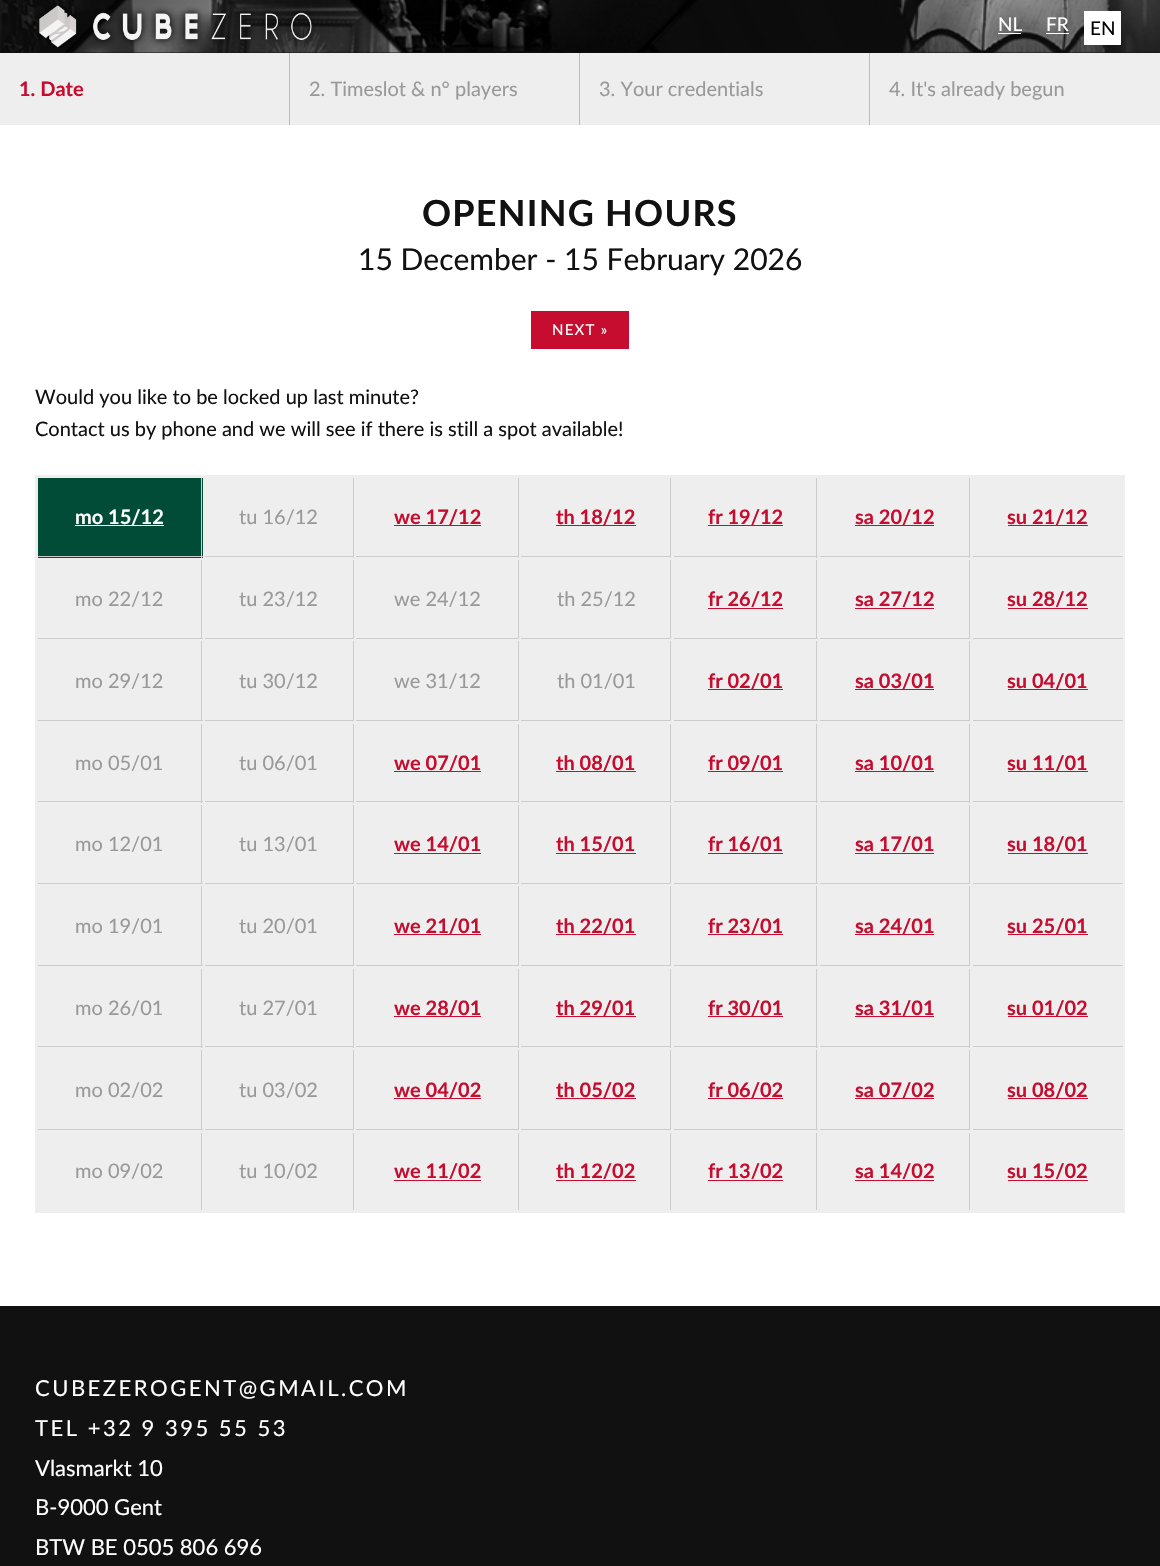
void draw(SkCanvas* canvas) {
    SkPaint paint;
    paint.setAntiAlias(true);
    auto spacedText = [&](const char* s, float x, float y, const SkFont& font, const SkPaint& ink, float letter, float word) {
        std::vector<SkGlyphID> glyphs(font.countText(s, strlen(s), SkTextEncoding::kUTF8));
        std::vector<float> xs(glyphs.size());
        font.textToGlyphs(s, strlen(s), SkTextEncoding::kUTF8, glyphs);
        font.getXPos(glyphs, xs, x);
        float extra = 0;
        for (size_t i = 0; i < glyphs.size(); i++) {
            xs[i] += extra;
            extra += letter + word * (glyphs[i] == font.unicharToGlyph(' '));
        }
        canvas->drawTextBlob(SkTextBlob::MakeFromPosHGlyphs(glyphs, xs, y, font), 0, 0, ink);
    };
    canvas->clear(0xFF111111);
    canvas->drawImageRect(SkImages::DeferredFromEncodedData(SkData::MakeFromFileName("img1.png")), SkRect::MakeXYWH(0, 0, 1160, 53), SkSamplingOptions());
    canvas->drawImageRect(SkImages::DeferredFromEncodedData(SkData::MakeFromFileName("img2.png")), SkRect::MakeXYWH(35, 5, 280, 43), SkSamplingOptions());
    SkFont font1(fontMgr->matchFamilyStyle("Lato", SkFontStyle::Normal()), 19);
    font1.setSubpixel(true);
    paint.setColor(0xFFFFFFFF);
    canvas->drawString("NL", 998, 31, font1, paint);
    canvas->drawRect(SkRect::MakeXYWH(998, 33, 23, 1), paint);
    canvas->drawString("FR", 1046, 31, font1, paint);
    canvas->drawRect(SkRect::MakeXYWH(1046, 33, 23, 1), paint);
    canvas->drawRect(SkRect::MakeXYWH(1084, 11, 37, 34), paint);
    paint.setColor(0xFF000000);
    canvas->drawString("EN", 1090, 35, font1, paint);
    paint.setColor(0xFFEEEEEE);
    canvas->drawRect(SkRect::MakeXYWH(0, 53, 1160, 72), paint);
    paint.setColor(0xFFBBBBBB);
    canvas->drawRect(SkRect::MakeXYWH(289, 53, 1, 72), paint);
    SkFont font2(fontMgr->matchFamilyStyle("Lato", SkFontStyle::Bold()), 20);
    font2.setSubpixel(true);
    paint.setColor(0xFFC60D2F);
    canvas->drawString("1. Date", 19, 96, font2, paint);
    paint.setColor(0xFFBBBBBB);
    canvas->drawRect(SkRect::MakeXYWH(579, 53, 1, 72), paint);
    SkFont font3(fontMgr->matchFamilyStyle("Lato", SkFontStyle::Normal()), 20);
    font3.setSubpixel(true);
    paint.setColor(0xFF999999);
    canvas->drawString("2. Timeslot & n° players", 309, 96, font3, paint);
    paint.setColor(0xFFBBBBBB);
    canvas->drawRect(SkRect::MakeXYWH(869, 53, 1, 72), paint);
    paint.setColor(0xFF999999);
    canvas->drawString("3. Your credentials", 599, 96, font3, paint);
    canvas->drawString("4. It's already begun", 889, 96, font3, paint);
    paint.setColor(0xFFFFFFFF);
    canvas->drawRect(SkRect::MakeXYWH(0, 125, 1160, 1181), paint);
    SkFont font4(fontMgr->matchFamilyStyle("Lato", SkFontStyle::Bold()), 36);
    font4.setSubpixel(true);
    paint.setColor(0xFF111111);
    spacedText("OPENING HOURS", 422, 226, font4, paint, 1.25f, 0);
    SkFont font5(fontMgr->matchFamilyStyle("Lato", SkFontStyle::Normal()), 30);
    font5.setSubpixel(true);
    canvas->drawString("15 December - 15 February 2026", 358, 270, font5, paint);
    paint.setColor(0xFFC60D2F);
    canvas->drawRect(SkRect::MakeXYWH(531, 311, 98, 38), paint);
    SkFont font6(fontMgr->matchFamilyStyle("Lato", SkFontStyle::Normal()), 15);
    font6.setSubpixel(true);
    paint.setColor(0xFFFFFFFF);
    spacedText("NEXT »", 552, 335, font6, paint, 1.25f, 0);
    paint.setColor(0xFF111111);
    canvas->drawString("Would you like to be locked up last minute?", 35, 404, font3, paint);
    canvas->drawString("Contact us by phone and we will see if there is still a spot available!", 35, 436, font3, paint);
    paint.setColor(0xFFEEEEEE);
    canvas->drawRect(SkRect::MakeXYWH(35, 475, 1090, 738), paint);
    paint.setColor(0xFF004C36);
    canvas->drawRect(SkRect::MakeXYWH(38, 478, 165, 80), paint);
    paint.setColor(0xFFCCCCCC);
    canvas->drawRect(SkRect::MakeXYWH(201, 478, 1, 80), paint);
    canvas->drawRect(SkRect::MakeXYWH(38, 556, 165, 1), paint);
    paint.setColor(0xFFFFFFFF);
    canvas->drawString("mo 15/12", 75, 524, font2, paint);
    canvas->drawRect(SkRect::MakeXYWH(75, 525, 89, 1), paint);
    paint.setColor(0xFFCCCCCC);
    canvas->drawRect(SkRect::MakeXYWH(353, 478, 1, 80), paint);
    canvas->drawRect(SkRect::MakeXYWH(205, 556, 149, 1), paint);
    paint.setColor(0xFF999999);
    canvas->drawString("tu 16/12", 239, 524, font3, paint);
    paint.setColor(0xFFCCCCCC);
    canvas->drawRect(SkRect::MakeXYWH(518, 478, 1, 80), paint);
    canvas->drawRect(SkRect::MakeXYWH(356, 556, 163, 1), paint);
    paint.setColor(0xFFC60D2F);
    canvas->drawString("we 17/12", 394, 524, font2, paint);
    canvas->drawRect(SkRect::MakeXYWH(394, 525, 87, 1), paint);
    paint.setColor(0xFFCCCCCC);
    canvas->drawRect(SkRect::MakeXYWH(670, 478, 1, 80), paint);
    canvas->drawRect(SkRect::MakeXYWH(521, 556, 150, 1), paint);
    paint.setColor(0xFFC60D2F);
    canvas->drawString("th 18/12", 556, 524, font2, paint);
    canvas->drawRect(SkRect::MakeXYWH(556, 525, 80, 1), paint);
    paint.setColor(0xFFCCCCCC);
    canvas->drawRect(SkRect::MakeXYWH(816, 478, 1, 80), paint);
    canvas->drawRect(SkRect::MakeXYWH(674, 556, 144, 1), paint);
    paint.setColor(0xFFC60D2F);
    canvas->drawString("fr 19/12", 708, 524, font2, paint);
    canvas->drawRect(SkRect::MakeXYWH(708, 525, 75, 1), paint);
    paint.setColor(0xFFCCCCCC);
    canvas->drawRect(SkRect::MakeXYWH(969, 478, 1, 80), paint);
    canvas->drawRect(SkRect::MakeXYWH(820, 556, 150, 1), paint);
    paint.setColor(0xFFC60D2F);
    canvas->drawString("sa 20/12", 855, 524, font2, paint);
    canvas->drawRect(SkRect::MakeXYWH(855, 525, 79, 1), paint);
    paint.setColor(0xFFCCCCCC);
    canvas->drawRect(SkRect::MakeXYWH(973, 556, 150, 1), paint);
    paint.setColor(0xFFC60D2F);
    canvas->drawString("su 21/12", 1007, 524, font2, paint);
    canvas->drawRect(SkRect::MakeXYWH(1008, 525, 80, 1), paint);
    paint.setColor(0xFFCCCCCC);
    canvas->drawRect(SkRect::MakeXYWH(201, 560, 1, 79), paint);
    canvas->drawRect(SkRect::MakeXYWH(38, 638, 165, 1), paint);
    paint.setColor(0xFF999999);
    canvas->drawString("mo 22/12", 75, 606, font3, paint);
    paint.setColor(0xFFCCCCCC);
    canvas->drawRect(SkRect::MakeXYWH(353, 560, 1, 79), paint);
    canvas->drawRect(SkRect::MakeXYWH(205, 638, 149, 1), paint);
    paint.setColor(0xFF999999);
    canvas->drawString("tu 23/12", 239, 606, font3, paint);
    paint.setColor(0xFFCCCCCC);
    canvas->drawRect(SkRect::MakeXYWH(518, 560, 1, 79), paint);
    canvas->drawRect(SkRect::MakeXYWH(356, 638, 163, 1), paint);
    paint.setColor(0xFF999999);
    canvas->drawString("we 24/12", 394, 606, font3, paint);
    paint.setColor(0xFFCCCCCC);
    canvas->drawRect(SkRect::MakeXYWH(670, 560, 1, 79), paint);
    canvas->drawRect(SkRect::MakeXYWH(521, 638, 150, 1), paint);
    paint.setColor(0xFF999999);
    canvas->drawString("th 25/12", 557, 606, font3, paint);
    paint.setColor(0xFFCCCCCC);
    canvas->drawRect(SkRect::MakeXYWH(816, 560, 1, 79), paint);
    canvas->drawRect(SkRect::MakeXYWH(674, 638, 144, 1), paint);
    paint.setColor(0xFFC60D2F);
    canvas->drawString("fr 26/12", 708, 606, font2, paint);
    canvas->drawRect(SkRect::MakeXYWH(708, 608, 75, 1), paint);
    paint.setColor(0xFFCCCCCC);
    canvas->drawRect(SkRect::MakeXYWH(969, 560, 1, 79), paint);
    canvas->drawRect(SkRect::MakeXYWH(820, 638, 150, 1), paint);
    paint.setColor(0xFFC60D2F);
    canvas->drawString("sa 27/12", 855, 606, font2, paint);
    canvas->drawRect(SkRect::MakeXYWH(855, 608, 79, 1), paint);
    paint.setColor(0xFFCCCCCC);
    canvas->drawRect(SkRect::MakeXYWH(973, 638, 150, 1), paint);
    paint.setColor(0xFFC60D2F);
    canvas->drawString("su 28/12", 1007, 606, font2, paint);
    canvas->drawRect(SkRect::MakeXYWH(1008, 608, 80, 1), paint);
    paint.setColor(0xFFCCCCCC);
    canvas->drawRect(SkRect::MakeXYWH(201, 641, 1, 80), paint);
    canvas->drawRect(SkRect::MakeXYWH(38, 720, 165, 1), paint);
    paint.setColor(0xFF999999);
    canvas->drawString("mo 29/12", 75, 688, font3, paint);
    paint.setColor(0xFFCCCCCC);
    canvas->drawRect(SkRect::MakeXYWH(353, 641, 1, 80), paint);
    canvas->drawRect(SkRect::MakeXYWH(205, 720, 149, 1), paint);
    paint.setColor(0xFF999999);
    canvas->drawString("tu 30/12", 239, 688, font3, paint);
    paint.setColor(0xFFCCCCCC);
    canvas->drawRect(SkRect::MakeXYWH(518, 641, 1, 80), paint);
    canvas->drawRect(SkRect::MakeXYWH(356, 720, 163, 1), paint);
    paint.setColor(0xFF999999);
    canvas->drawString("we 31/12", 394, 688, font3, paint);
    paint.setColor(0xFFCCCCCC);
    canvas->drawRect(SkRect::MakeXYWH(670, 641, 1, 80), paint);
    canvas->drawRect(SkRect::MakeXYWH(521, 720, 150, 1), paint);
    paint.setColor(0xFF999999);
    canvas->drawString("th 01/01", 557, 688, font3, paint);
    paint.setColor(0xFFCCCCCC);
    canvas->drawRect(SkRect::MakeXYWH(816, 641, 1, 80), paint);
    canvas->drawRect(SkRect::MakeXYWH(674, 720, 144, 1), paint);
    paint.setColor(0xFFC60D2F);
    canvas->drawString("fr 02/01", 708, 688, font2, paint);
    canvas->drawRect(SkRect::MakeXYWH(708, 689, 75, 1), paint);
    paint.setColor(0xFFCCCCCC);
    canvas->drawRect(SkRect::MakeXYWH(969, 641, 1, 80), paint);
    canvas->drawRect(SkRect::MakeXYWH(820, 720, 150, 1), paint);
    paint.setColor(0xFFC60D2F);
    canvas->drawString("sa 03/01", 855, 688, font2, paint);
    canvas->drawRect(SkRect::MakeXYWH(855, 689, 79, 1), paint);
    paint.setColor(0xFFCCCCCC);
    canvas->drawRect(SkRect::MakeXYWH(973, 720, 150, 1), paint);
    paint.setColor(0xFFC60D2F);
    canvas->drawString("su 04/01", 1007, 688, font2, paint);
    canvas->drawRect(SkRect::MakeXYWH(1008, 689, 80, 1), paint);
    paint.setColor(0xFFCCCCCC);
    canvas->drawRect(SkRect::MakeXYWH(201, 724, 1, 79), paint);
    canvas->drawRect(SkRect::MakeXYWH(38, 801, 165, 1), paint);
    paint.setColor(0xFF999999);
    canvas->drawString("mo 05/01", 75, 770, font3, paint);
    paint.setColor(0xFFCCCCCC);
    canvas->drawRect(SkRect::MakeXYWH(353, 724, 1, 79), paint);
    canvas->drawRect(SkRect::MakeXYWH(205, 801, 149, 1), paint);
    paint.setColor(0xFF999999);
    canvas->drawString("tu 06/01", 239, 770, font3, paint);
    paint.setColor(0xFFCCCCCC);
    canvas->drawRect(SkRect::MakeXYWH(518, 724, 1, 79), paint);
    canvas->drawRect(SkRect::MakeXYWH(356, 801, 163, 1), paint);
    paint.setColor(0xFFC60D2F);
    canvas->drawString("we 07/01", 394, 770, font2, paint);
    canvas->drawRect(SkRect::MakeXYWH(394, 771, 87, 1), paint);
    paint.setColor(0xFFCCCCCC);
    canvas->drawRect(SkRect::MakeXYWH(670, 724, 1, 79), paint);
    canvas->drawRect(SkRect::MakeXYWH(521, 801, 150, 1), paint);
    paint.setColor(0xFFC60D2F);
    canvas->drawString("th 08/01", 556, 770, font2, paint);
    canvas->drawRect(SkRect::MakeXYWH(556, 771, 80, 1), paint);
    paint.setColor(0xFFCCCCCC);
    canvas->drawRect(SkRect::MakeXYWH(816, 724, 1, 79), paint);
    canvas->drawRect(SkRect::MakeXYWH(674, 801, 144, 1), paint);
    paint.setColor(0xFFC60D2F);
    canvas->drawString("fr 09/01", 708, 770, font2, paint);
    canvas->drawRect(SkRect::MakeXYWH(708, 771, 75, 1), paint);
    paint.setColor(0xFFCCCCCC);
    canvas->drawRect(SkRect::MakeXYWH(969, 724, 1, 79), paint);
    canvas->drawRect(SkRect::MakeXYWH(820, 801, 150, 1), paint);
    paint.setColor(0xFFC60D2F);
    canvas->drawString("sa 10/01", 855, 770, font2, paint);
    canvas->drawRect(SkRect::MakeXYWH(855, 771, 79, 1), paint);
    paint.setColor(0xFFCCCCCC);
    canvas->drawRect(SkRect::MakeXYWH(973, 801, 150, 1), paint);
    paint.setColor(0xFFC60D2F);
    canvas->drawString("su 11/01", 1007, 770, font2, paint);
    canvas->drawRect(SkRect::MakeXYWH(1008, 771, 80, 1), paint);
    paint.setColor(0xFFCCCCCC);
    canvas->drawRect(SkRect::MakeXYWH(201, 805, 1, 79), paint);
    canvas->drawRect(SkRect::MakeXYWH(38, 883, 165, 1), paint);
    paint.setColor(0xFF999999);
    canvas->drawString("mo 12/01", 75, 851, font3, paint);
    paint.setColor(0xFFCCCCCC);
    canvas->drawRect(SkRect::MakeXYWH(353, 805, 1, 79), paint);
    canvas->drawRect(SkRect::MakeXYWH(205, 883, 149, 1), paint);
    paint.setColor(0xFF999999);
    canvas->drawString("tu 13/01", 239, 851, font3, paint);
    paint.setColor(0xFFCCCCCC);
    canvas->drawRect(SkRect::MakeXYWH(518, 805, 1, 79), paint);
    canvas->drawRect(SkRect::MakeXYWH(356, 883, 163, 1), paint);
    paint.setColor(0xFFC60D2F);
    canvas->drawString("we 14/01", 394, 851, font2, paint);
    canvas->drawRect(SkRect::MakeXYWH(394, 853, 87, 1), paint);
    paint.setColor(0xFFCCCCCC);
    canvas->drawRect(SkRect::MakeXYWH(670, 805, 1, 79), paint);
    canvas->drawRect(SkRect::MakeXYWH(521, 883, 150, 1), paint);
    paint.setColor(0xFFC60D2F);
    canvas->drawString("th 15/01", 556, 851, font2, paint);
    canvas->drawRect(SkRect::MakeXYWH(556, 853, 80, 1), paint);
    paint.setColor(0xFFCCCCCC);
    canvas->drawRect(SkRect::MakeXYWH(816, 805, 1, 79), paint);
    canvas->drawRect(SkRect::MakeXYWH(674, 883, 144, 1), paint);
    paint.setColor(0xFFC60D2F);
    canvas->drawString("fr 16/01", 708, 851, font2, paint);
    canvas->drawRect(SkRect::MakeXYWH(708, 853, 75, 1), paint);
    paint.setColor(0xFFCCCCCC);
    canvas->drawRect(SkRect::MakeXYWH(969, 805, 1, 79), paint);
    canvas->drawRect(SkRect::MakeXYWH(820, 883, 150, 1), paint);
    paint.setColor(0xFFC60D2F);
    canvas->drawString("sa 17/01", 855, 851, font2, paint);
    canvas->drawRect(SkRect::MakeXYWH(855, 853, 79, 1), paint);
    paint.setColor(0xFFCCCCCC);
    canvas->drawRect(SkRect::MakeXYWH(973, 883, 150, 1), paint);
    paint.setColor(0xFFC60D2F);
    canvas->drawString("su 18/01", 1007, 851, font2, paint);
    canvas->drawRect(SkRect::MakeXYWH(1008, 853, 80, 1), paint);
    paint.setColor(0xFFCCCCCC);
    canvas->drawRect(SkRect::MakeXYWH(201, 886, 1, 80), paint);
    canvas->drawRect(SkRect::MakeXYWH(38, 965, 165, 1), paint);
    paint.setColor(0xFF999999);
    canvas->drawString("mo 19/01", 75, 933, font3, paint);
    paint.setColor(0xFFCCCCCC);
    canvas->drawRect(SkRect::MakeXYWH(353, 886, 1, 80), paint);
    canvas->drawRect(SkRect::MakeXYWH(205, 965, 149, 1), paint);
    paint.setColor(0xFF999999);
    canvas->drawString("tu 20/01", 239, 933, font3, paint);
    paint.setColor(0xFFCCCCCC);
    canvas->drawRect(SkRect::MakeXYWH(518, 886, 1, 80), paint);
    canvas->drawRect(SkRect::MakeXYWH(356, 965, 163, 1), paint);
    paint.setColor(0xFFC60D2F);
    canvas->drawString("we 21/01", 394, 933, font2, paint);
    canvas->drawRect(SkRect::MakeXYWH(394, 934, 87, 1), paint);
    paint.setColor(0xFFCCCCCC);
    canvas->drawRect(SkRect::MakeXYWH(670, 886, 1, 80), paint);
    canvas->drawRect(SkRect::MakeXYWH(521, 965, 150, 1), paint);
    paint.setColor(0xFFC60D2F);
    canvas->drawString("th 22/01", 556, 933, font2, paint);
    canvas->drawRect(SkRect::MakeXYWH(556, 934, 80, 1), paint);
    paint.setColor(0xFFCCCCCC);
    canvas->drawRect(SkRect::MakeXYWH(816, 886, 1, 80), paint);
    canvas->drawRect(SkRect::MakeXYWH(674, 965, 144, 1), paint);
    paint.setColor(0xFFC60D2F);
    canvas->drawString("fr 23/01", 708, 933, font2, paint);
    canvas->drawRect(SkRect::MakeXYWH(708, 934, 75, 1), paint);
    paint.setColor(0xFFCCCCCC);
    canvas->drawRect(SkRect::MakeXYWH(969, 886, 1, 80), paint);
    canvas->drawRect(SkRect::MakeXYWH(820, 965, 150, 1), paint);
    paint.setColor(0xFFC60D2F);
    canvas->drawString("sa 24/01", 855, 933, font2, paint);
    canvas->drawRect(SkRect::MakeXYWH(855, 934, 79, 1), paint);
    paint.setColor(0xFFCCCCCC);
    canvas->drawRect(SkRect::MakeXYWH(973, 965, 150, 1), paint);
    paint.setColor(0xFFC60D2F);
    canvas->drawString("su 25/01", 1007, 933, font2, paint);
    canvas->drawRect(SkRect::MakeXYWH(1008, 934, 80, 1), paint);
    paint.setColor(0xFFCCCCCC);
    canvas->drawRect(SkRect::MakeXYWH(201, 969, 1, 79), paint);
    canvas->drawRect(SkRect::MakeXYWH(38, 1046, 165, 1), paint);
    paint.setColor(0xFF999999);
    canvas->drawString("mo 26/01", 75, 1015, font3, paint);
    paint.setColor(0xFFCCCCCC);
    canvas->drawRect(SkRect::MakeXYWH(353, 969, 1, 79), paint);
    canvas->drawRect(SkRect::MakeXYWH(205, 1046, 149, 1), paint);
    paint.setColor(0xFF999999);
    canvas->drawString("tu 27/01", 239, 1015, font3, paint);
    paint.setColor(0xFFCCCCCC);
    canvas->drawRect(SkRect::MakeXYWH(518, 969, 1, 79), paint);
    canvas->drawRect(SkRect::MakeXYWH(356, 1046, 163, 1), paint);
    paint.setColor(0xFFC60D2F);
    canvas->drawString("we 28/01", 394, 1015, font2, paint);
    canvas->drawRect(SkRect::MakeXYWH(394, 1016, 87, 1), paint);
    paint.setColor(0xFFCCCCCC);
    canvas->drawRect(SkRect::MakeXYWH(670, 969, 1, 79), paint);
    canvas->drawRect(SkRect::MakeXYWH(521, 1046, 150, 1), paint);
    paint.setColor(0xFFC60D2F);
    canvas->drawString("th 29/01", 556, 1015, font2, paint);
    canvas->drawRect(SkRect::MakeXYWH(556, 1016, 80, 1), paint);
    paint.setColor(0xFFCCCCCC);
    canvas->drawRect(SkRect::MakeXYWH(816, 969, 1, 79), paint);
    canvas->drawRect(SkRect::MakeXYWH(674, 1046, 144, 1), paint);
    paint.setColor(0xFFC60D2F);
    canvas->drawString("fr 30/01", 708, 1015, font2, paint);
    canvas->drawRect(SkRect::MakeXYWH(708, 1016, 75, 1), paint);
    paint.setColor(0xFFCCCCCC);
    canvas->drawRect(SkRect::MakeXYWH(969, 969, 1, 79), paint);
    canvas->drawRect(SkRect::MakeXYWH(820, 1046, 150, 1), paint);
    paint.setColor(0xFFC60D2F);
    canvas->drawString("sa 31/01", 855, 1015, font2, paint);
    canvas->drawRect(SkRect::MakeXYWH(855, 1016, 79, 1), paint);
    paint.setColor(0xFFCCCCCC);
    canvas->drawRect(SkRect::MakeXYWH(973, 1046, 150, 1), paint);
    paint.setColor(0xFFC60D2F);
    canvas->drawString("su 01/02", 1007, 1015, font2, paint);
    canvas->drawRect(SkRect::MakeXYWH(1008, 1016, 80, 1), paint);
    paint.setColor(0xFFCCCCCC);
    canvas->drawRect(SkRect::MakeXYWH(201, 1050, 1, 80), paint);
    canvas->drawRect(SkRect::MakeXYWH(38, 1129, 165, 1), paint);
    paint.setColor(0xFF999999);
    canvas->drawString("mo 02/02", 75, 1097, font3, paint);
    paint.setColor(0xFFCCCCCC);
    canvas->drawRect(SkRect::MakeXYWH(353, 1050, 1, 80), paint);
    canvas->drawRect(SkRect::MakeXYWH(205, 1129, 149, 1), paint);
    paint.setColor(0xFF999999);
    canvas->drawString("tu 03/02", 239, 1097, font3, paint);
    paint.setColor(0xFFCCCCCC);
    canvas->drawRect(SkRect::MakeXYWH(518, 1050, 1, 80), paint);
    canvas->drawRect(SkRect::MakeXYWH(356, 1129, 163, 1), paint);
    paint.setColor(0xFFC60D2F);
    canvas->drawString("we 04/02", 394, 1097, font2, paint);
    canvas->drawRect(SkRect::MakeXYWH(394, 1098, 87, 1), paint);
    paint.setColor(0xFFCCCCCC);
    canvas->drawRect(SkRect::MakeXYWH(670, 1050, 1, 80), paint);
    canvas->drawRect(SkRect::MakeXYWH(521, 1129, 150, 1), paint);
    paint.setColor(0xFFC60D2F);
    canvas->drawString("th 05/02", 556, 1097, font2, paint);
    canvas->drawRect(SkRect::MakeXYWH(556, 1098, 80, 1), paint);
    paint.setColor(0xFFCCCCCC);
    canvas->drawRect(SkRect::MakeXYWH(816, 1050, 1, 80), paint);
    canvas->drawRect(SkRect::MakeXYWH(674, 1129, 144, 1), paint);
    paint.setColor(0xFFC60D2F);
    canvas->drawString("fr 06/02", 708, 1097, font2, paint);
    canvas->drawRect(SkRect::MakeXYWH(708, 1098, 75, 1), paint);
    paint.setColor(0xFFCCCCCC);
    canvas->drawRect(SkRect::MakeXYWH(969, 1050, 1, 80), paint);
    canvas->drawRect(SkRect::MakeXYWH(820, 1129, 150, 1), paint);
    paint.setColor(0xFFC60D2F);
    canvas->drawString("sa 07/02", 855, 1097, font2, paint);
    canvas->drawRect(SkRect::MakeXYWH(855, 1098, 79, 1), paint);
    paint.setColor(0xFFCCCCCC);
    canvas->drawRect(SkRect::MakeXYWH(973, 1129, 150, 1), paint);
    paint.setColor(0xFFC60D2F);
    canvas->drawString("su 08/02", 1007, 1097, font2, paint);
    canvas->drawRect(SkRect::MakeXYWH(1008, 1098, 80, 1), paint);
    paint.setColor(0xFFCCCCCC);
    canvas->drawRect(SkRect::MakeXYWH(201, 1133, 1, 77), paint);
    paint.setColor(0xFF999999);
    canvas->drawString("mo 09/02", 75, 1178, font3, paint);
    paint.setColor(0xFFCCCCCC);
    canvas->drawRect(SkRect::MakeXYWH(353, 1133, 1, 77), paint);
    paint.setColor(0xFF999999);
    canvas->drawString("tu 10/02", 239, 1178, font3, paint);
    paint.setColor(0xFFCCCCCC);
    canvas->drawRect(SkRect::MakeXYWH(518, 1133, 1, 77), paint);
    paint.setColor(0xFFC60D2F);
    canvas->drawString("we 11/02", 394, 1178, font2, paint);
    canvas->drawRect(SkRect::MakeXYWH(394, 1180, 87, 1), paint);
    paint.setColor(0xFFCCCCCC);
    canvas->drawRect(SkRect::MakeXYWH(670, 1133, 1, 77), paint);
    paint.setColor(0xFFC60D2F);
    canvas->drawString("th 12/02", 556, 1178, font2, paint);
    canvas->drawRect(SkRect::MakeXYWH(556, 1180, 80, 1), paint);
    paint.setColor(0xFFCCCCCC);
    canvas->drawRect(SkRect::MakeXYWH(816, 1133, 1, 77), paint);
    paint.setColor(0xFFC60D2F);
    canvas->drawString("fr 13/02", 708, 1178, font2, paint);
    canvas->drawRect(SkRect::MakeXYWH(708, 1180, 75, 1), paint);
    paint.setColor(0xFFCCCCCC);
    canvas->drawRect(SkRect::MakeXYWH(969, 1133, 1, 77), paint);
    paint.setColor(0xFFC60D2F);
    canvas->drawString("sa 14/02", 855, 1178, font2, paint);
    canvas->drawRect(SkRect::MakeXYWH(855, 1180, 79, 1), paint);
    canvas->drawString("su 15/02", 1007, 1178, font2, paint);
    canvas->drawRect(SkRect::MakeXYWH(1008, 1180, 80, 1), paint);
    SkFont font7(fontMgr->matchFamilyStyle("Lato", SkFontStyle::Normal()), 22);
    font7.setSubpixel(true);
    paint.setColor(0xFFFFFFFF);
    spacedText("CUBEZEROGENT@GMAIL.COM", 35, 1396, font7, paint, 2.5f, 0);
    spacedText("TEL +32 9 395 55 53", 35, 1436, font7, paint, 2.5f, 0);
    canvas->drawString("Vlasmarkt 10", 35, 1476, font7, paint);
    canvas->drawString("B-9000 Gent", 35, 1515, font7, paint);
    canvas->drawString("BTW BE 0505 806 696", 35, 1555, font7, paint);
}
